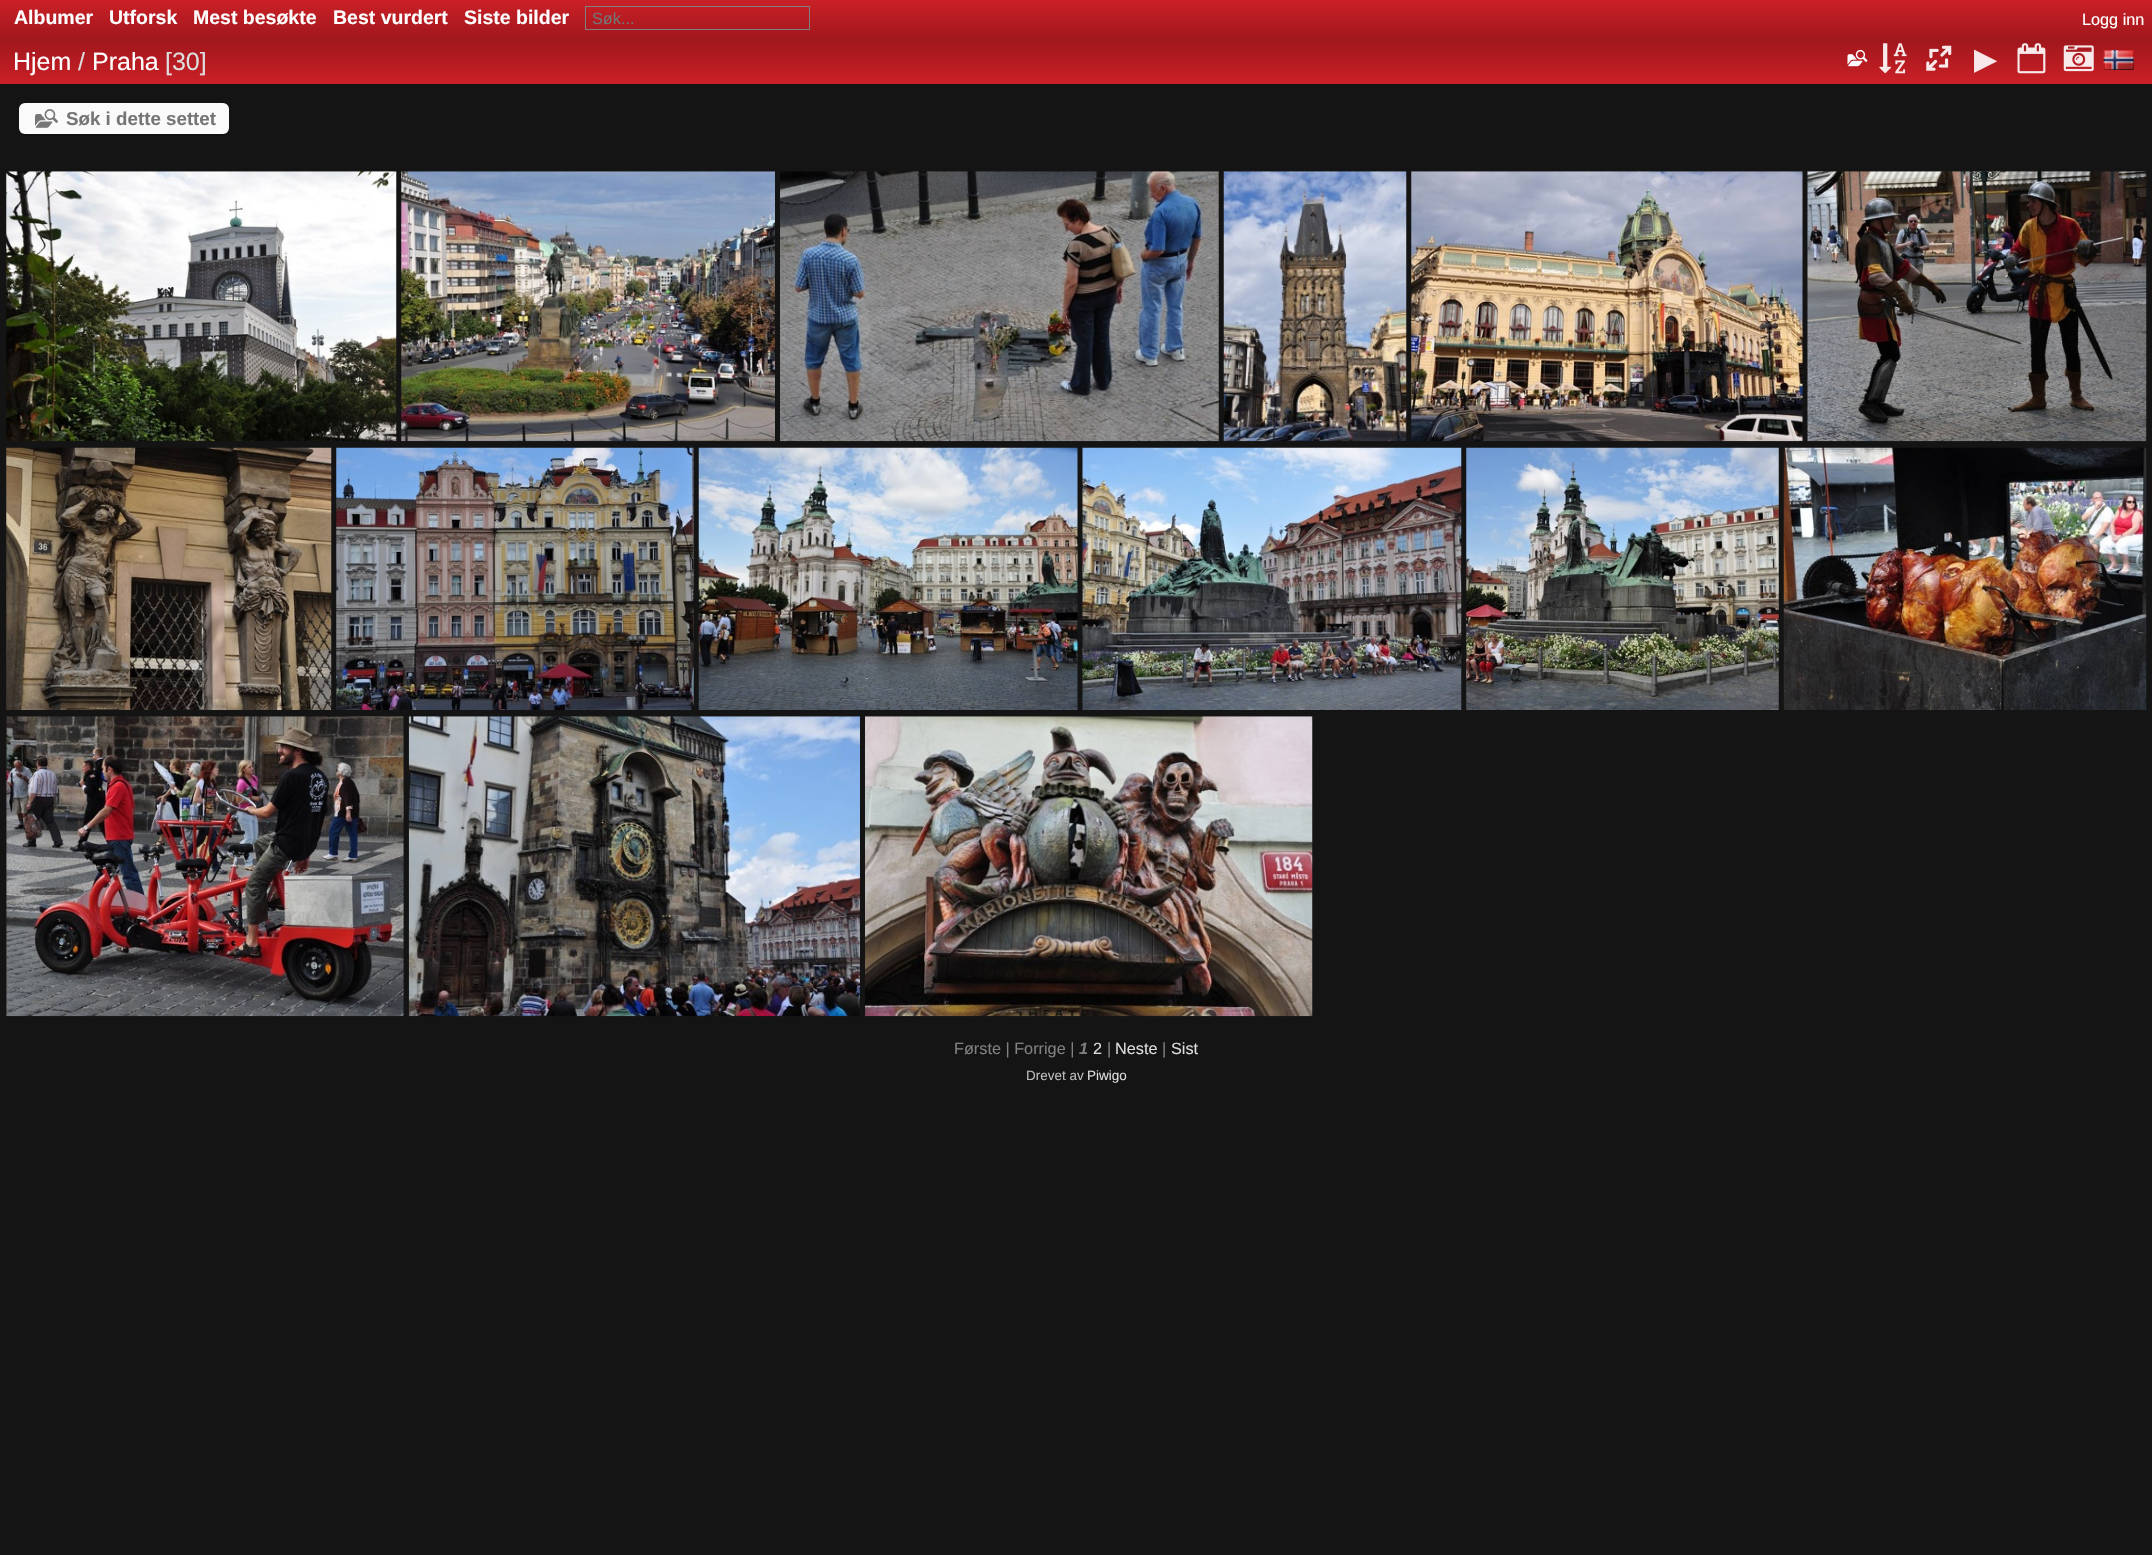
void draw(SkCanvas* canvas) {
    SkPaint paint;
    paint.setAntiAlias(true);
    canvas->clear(0xFF141414);
    {
        const SkColor colors[] = {0xFFCB2027, 0xFFA0171C};
        const float stops[] = {0, 1};
        const SkPoint ends[] = {{1076, 0}, {1076, 40}};
        paint.setShader(SkGradientShader::MakeLinear(ends, colors, stops, 2, SkTileMode::kClamp));
        paint.setAlpha(255);
    }
    canvas->drawRect(SkRect::MakeXYWH(0, 0, 2152, 40), paint);
    SkFont font1(fontMgr->matchFamilyStyle("Liberation Sans", SkFontStyle::Bold()), 19.5f);
    font1.setSubpixel(true);
    paint.setShader(nullptr);
    paint.setColor(0xFFFFFFFF);
    canvas->drawString("Albumer", 14, 24, font1, paint);
    canvas->drawString("Utforsk", 109, 24, font1, paint);
    canvas->drawString("Mest besøkte", 193, 24, font1, paint);
    canvas->drawString("Best vurdert", 333, 24, font1, paint);
    canvas->drawString("Siste bilder", 464, 24, font1, paint);
    paint.setStyle(SkPaint::kStroke_Style);
    paint.setStrokeWidth(1);
    paint.setColor(0xFF808080);
    canvas->drawRect(SkRect::MakeXYWH(585.5f, 6.5f, 224, 23), paint);
    SkFont font2(fontMgr->matchFamilyStyle("Liberation Sans", SkFontStyle::Normal()), 16.25f);
    font2.setSubpixel(true);
    paint.setStyle(SkPaint::kFill_Style);
    paint.setColor(0xFF757575);
    canvas->drawString("Søk...", 592, 24, font2, paint);
    paint.setColor(0xFFFFFFFF);
    canvas->drawString("Logg inn", 2082, 25, font2, paint);
    {
        const SkColor colors[] = {0xFFA0171C, 0xFFCB2027};
        const float stops[] = {0, 1};
        const SkPoint ends[] = {{1076, 40}, {1076, 84}};
        paint.setShader(SkGradientShader::MakeLinear(ends, colors, stops, 2, SkTileMode::kClamp));
        paint.setAlpha(255);
    }
    canvas->drawRect(SkRect::MakeXYWH(0, 40, 2152, 44), paint);
    SkFont font3(fontMgr->matchFamilyStyle("Liberation Sans", SkFontStyle::Normal()), 25);
    font3.setSubpixel(true);
    paint.setShader(nullptr);
    paint.setColor(0xFFFFFFFF);
    canvas->drawString("Hjem", 13, 70, font3, paint);
    paint.setColor(0xFFDDDDDD);
    canvas->drawString("/", 78, 70, font3, paint);
    paint.setColor(0xFFFFFFFF);
    canvas->drawString("Praha", 92, 70, font3, paint);
    paint.setColor(0xFFDDDDDD);
    canvas->drawString("[30]", 165, 70, font3, paint);
    canvas->drawImageRect(SkImages::DeferredFromEncodedData(SkData::MakeFromFileName("img1.png")), SkRect::MakeXYWH(1847, 49, 21, 18), SkSamplingOptions());
    canvas->drawImageRect(SkImages::DeferredFromEncodedData(SkData::MakeFromFileName("img2.png")), SkRect::MakeXYWH(1879, 43, 28, 31), SkSamplingOptions());
    canvas->drawImageRect(SkImages::DeferredFromEncodedData(SkData::MakeFromFileName("img3.png")), SkRect::MakeXYWH(1926, 45, 26, 26), SkSamplingOptions());
    SkFont font4(fontMgr->matchFamilyStyle("DejaVu Sans", SkFontStyle::Normal()), 30);
    font4.setSubpixel(true);
    paint.setColor(0xFFF8E8E9);
    canvas->drawString("▶", 1974, 69, font4, paint);
    canvas->drawImageRect(SkImages::DeferredFromEncodedData(SkData::MakeFromFileName("img4.png")), SkRect::MakeXYWH(2017, 43, 29, 31), SkSamplingOptions());
    canvas->drawImageRect(SkImages::DeferredFromEncodedData(SkData::MakeFromFileName("img5.png")), SkRect::MakeXYWH(2063, 45, 31, 27), SkSamplingOptions());
    canvas->drawImageRect(SkImages::DeferredFromEncodedData(SkData::MakeFromFileName("img6.png")), SkRect::MakeXYWH(2103, 50, 31, 20), SkSamplingOptions());
    paint.setColor(0xFF111111);
    canvas->drawPath(SkPathBuilder().moveTo(19, 129).cubicTo(19, 133, 21, 136, 25, 136).lineTo(223, 136).cubicTo(230, 136, 229, 128, 229, 124).lineTo(229, 109).lineTo(229, 128).cubicTo(229, 131, 226, 134, 222, 134).lineTo(25, 134).cubicTo(22, 134, 20, 132, 19, 129).close().detach(), paint);
    paint.setColor(0xFFFAFAFA);
    canvas->drawRoundRect(SkRect::MakeXYWH(19, 103, 210, 31), 6, 6, paint);
    canvas->drawImageRect(SkImages::DeferredFromEncodedData(SkData::MakeFromFileName("img7.png")), SkRect::MakeXYWH(35, 109, 23, 19), SkSamplingOptions());
    SkFont font5(fontMgr->matchFamilyStyle("Liberation Sans", SkFontStyle::Bold()), 18.75f);
    font5.setSubpixel(true);
    paint.setColor(0xFF757575);
    canvas->drawString("Søk i dette settet", 66, 125, font5, paint);
    canvas->drawImageRect(SkImages::DeferredFromEncodedData(SkData::MakeFromFileName("img8.png")), SkRect::MakeXYWH(6, 171, 391, 271), SkSamplingOptions());
    canvas->drawImageRect(SkImages::DeferredFromEncodedData(SkData::MakeFromFileName("img9.png")), SkRect::MakeXYWH(401, 171, 374, 271), SkSamplingOptions());
    canvas->drawImageRect(SkImages::DeferredFromEncodedData(SkData::MakeFromFileName("img10.png")), SkRect::MakeXYWH(780, 171, 439, 271), SkSamplingOptions());
    canvas->drawImageRect(SkImages::DeferredFromEncodedData(SkData::MakeFromFileName("img11.png")), SkRect::MakeXYWH(1223, 171, 184, 271), SkSamplingOptions());
    canvas->drawImageRect(SkImages::DeferredFromEncodedData(SkData::MakeFromFileName("img12.png")), SkRect::MakeXYWH(1411, 171, 392, 271), SkSamplingOptions());
    canvas->drawImageRect(SkImages::DeferredFromEncodedData(SkData::MakeFromFileName("img13.png")), SkRect::MakeXYWH(1807, 171, 340, 271), SkSamplingOptions());
    canvas->drawImageRect(SkImages::DeferredFromEncodedData(SkData::MakeFromFileName("img14.png")), SkRect::MakeXYWH(6, 447, 326, 263), SkSamplingOptions());
    canvas->drawImageRect(SkImages::DeferredFromEncodedData(SkData::MakeFromFileName("img15.png")), SkRect::MakeXYWH(336, 447, 358, 263), SkSamplingOptions());
    canvas->drawImageRect(SkImages::DeferredFromEncodedData(SkData::MakeFromFileName("img16.png")), SkRect::MakeXYWH(698, 447, 380, 263), SkSamplingOptions());
    canvas->drawImageRect(SkImages::DeferredFromEncodedData(SkData::MakeFromFileName("img17.png")), SkRect::MakeXYWH(1082, 447, 380, 263), SkSamplingOptions());
    canvas->drawImageRect(SkImages::DeferredFromEncodedData(SkData::MakeFromFileName("img18.png")), SkRect::MakeXYWH(1466, 447, 313, 263), SkSamplingOptions());
    canvas->drawImageRect(SkImages::DeferredFromEncodedData(SkData::MakeFromFileName("img19.png")), SkRect::MakeXYWH(1783, 447, 364, 263), SkSamplingOptions());
    canvas->drawImageRect(SkImages::DeferredFromEncodedData(SkData::MakeFromFileName("img20.png")), SkRect::MakeXYWH(6, 716, 398, 301), SkSamplingOptions());
    canvas->drawImageRect(SkImages::DeferredFromEncodedData(SkData::MakeFromFileName("img21.png")), SkRect::MakeXYWH(408, 716, 452, 301), SkSamplingOptions());
    canvas->drawImageRect(SkImages::DeferredFromEncodedData(SkData::MakeFromFileName("img22.png")), SkRect::MakeXYWH(865, 716, 448, 301), SkSamplingOptions());
    paint.setColor(0xFF808080);
    canvas->drawString("Første | Forrige |", 954, 1054, font2, paint);
    SkFont font6(fontMgr->matchFamilyStyle("Liberation Sans", SkFontStyle::BoldItalic()), 16.25f);
    font6.setSubpixel(true);
    canvas->drawString("1", 1079, 1054, font6, paint);
    paint.setColor(0xFFDDDDDD);
    canvas->drawString("2", 1093, 1054, font2, paint);
    paint.setColor(0xFF808080);
    canvas->drawString("|", 1107, 1054, font2, paint);
    paint.setColor(0xFFDDDDDD);
    canvas->drawString("Neste", 1115, 1054, font2, paint);
    paint.setColor(0xFF808080);
    canvas->drawString("|", 1162, 1054, font2, paint);
    paint.setColor(0xFFDDDDDD);
    canvas->drawString("Sist", 1171, 1054, font2, paint);
    SkFont font7(fontMgr->matchFamilyStyle("Liberation Sans", SkFontStyle::Normal()), 13.5f);
    font7.setSubpixel(true);
    paint.setColor(0xFFBBBBBB);
    canvas->drawString("Drevet av", 1026, 1080, font7, paint);
    paint.setColor(0xFFDDDDDD);
    canvas->drawString("Piwigo", 1087, 1080, font7, paint);
}
